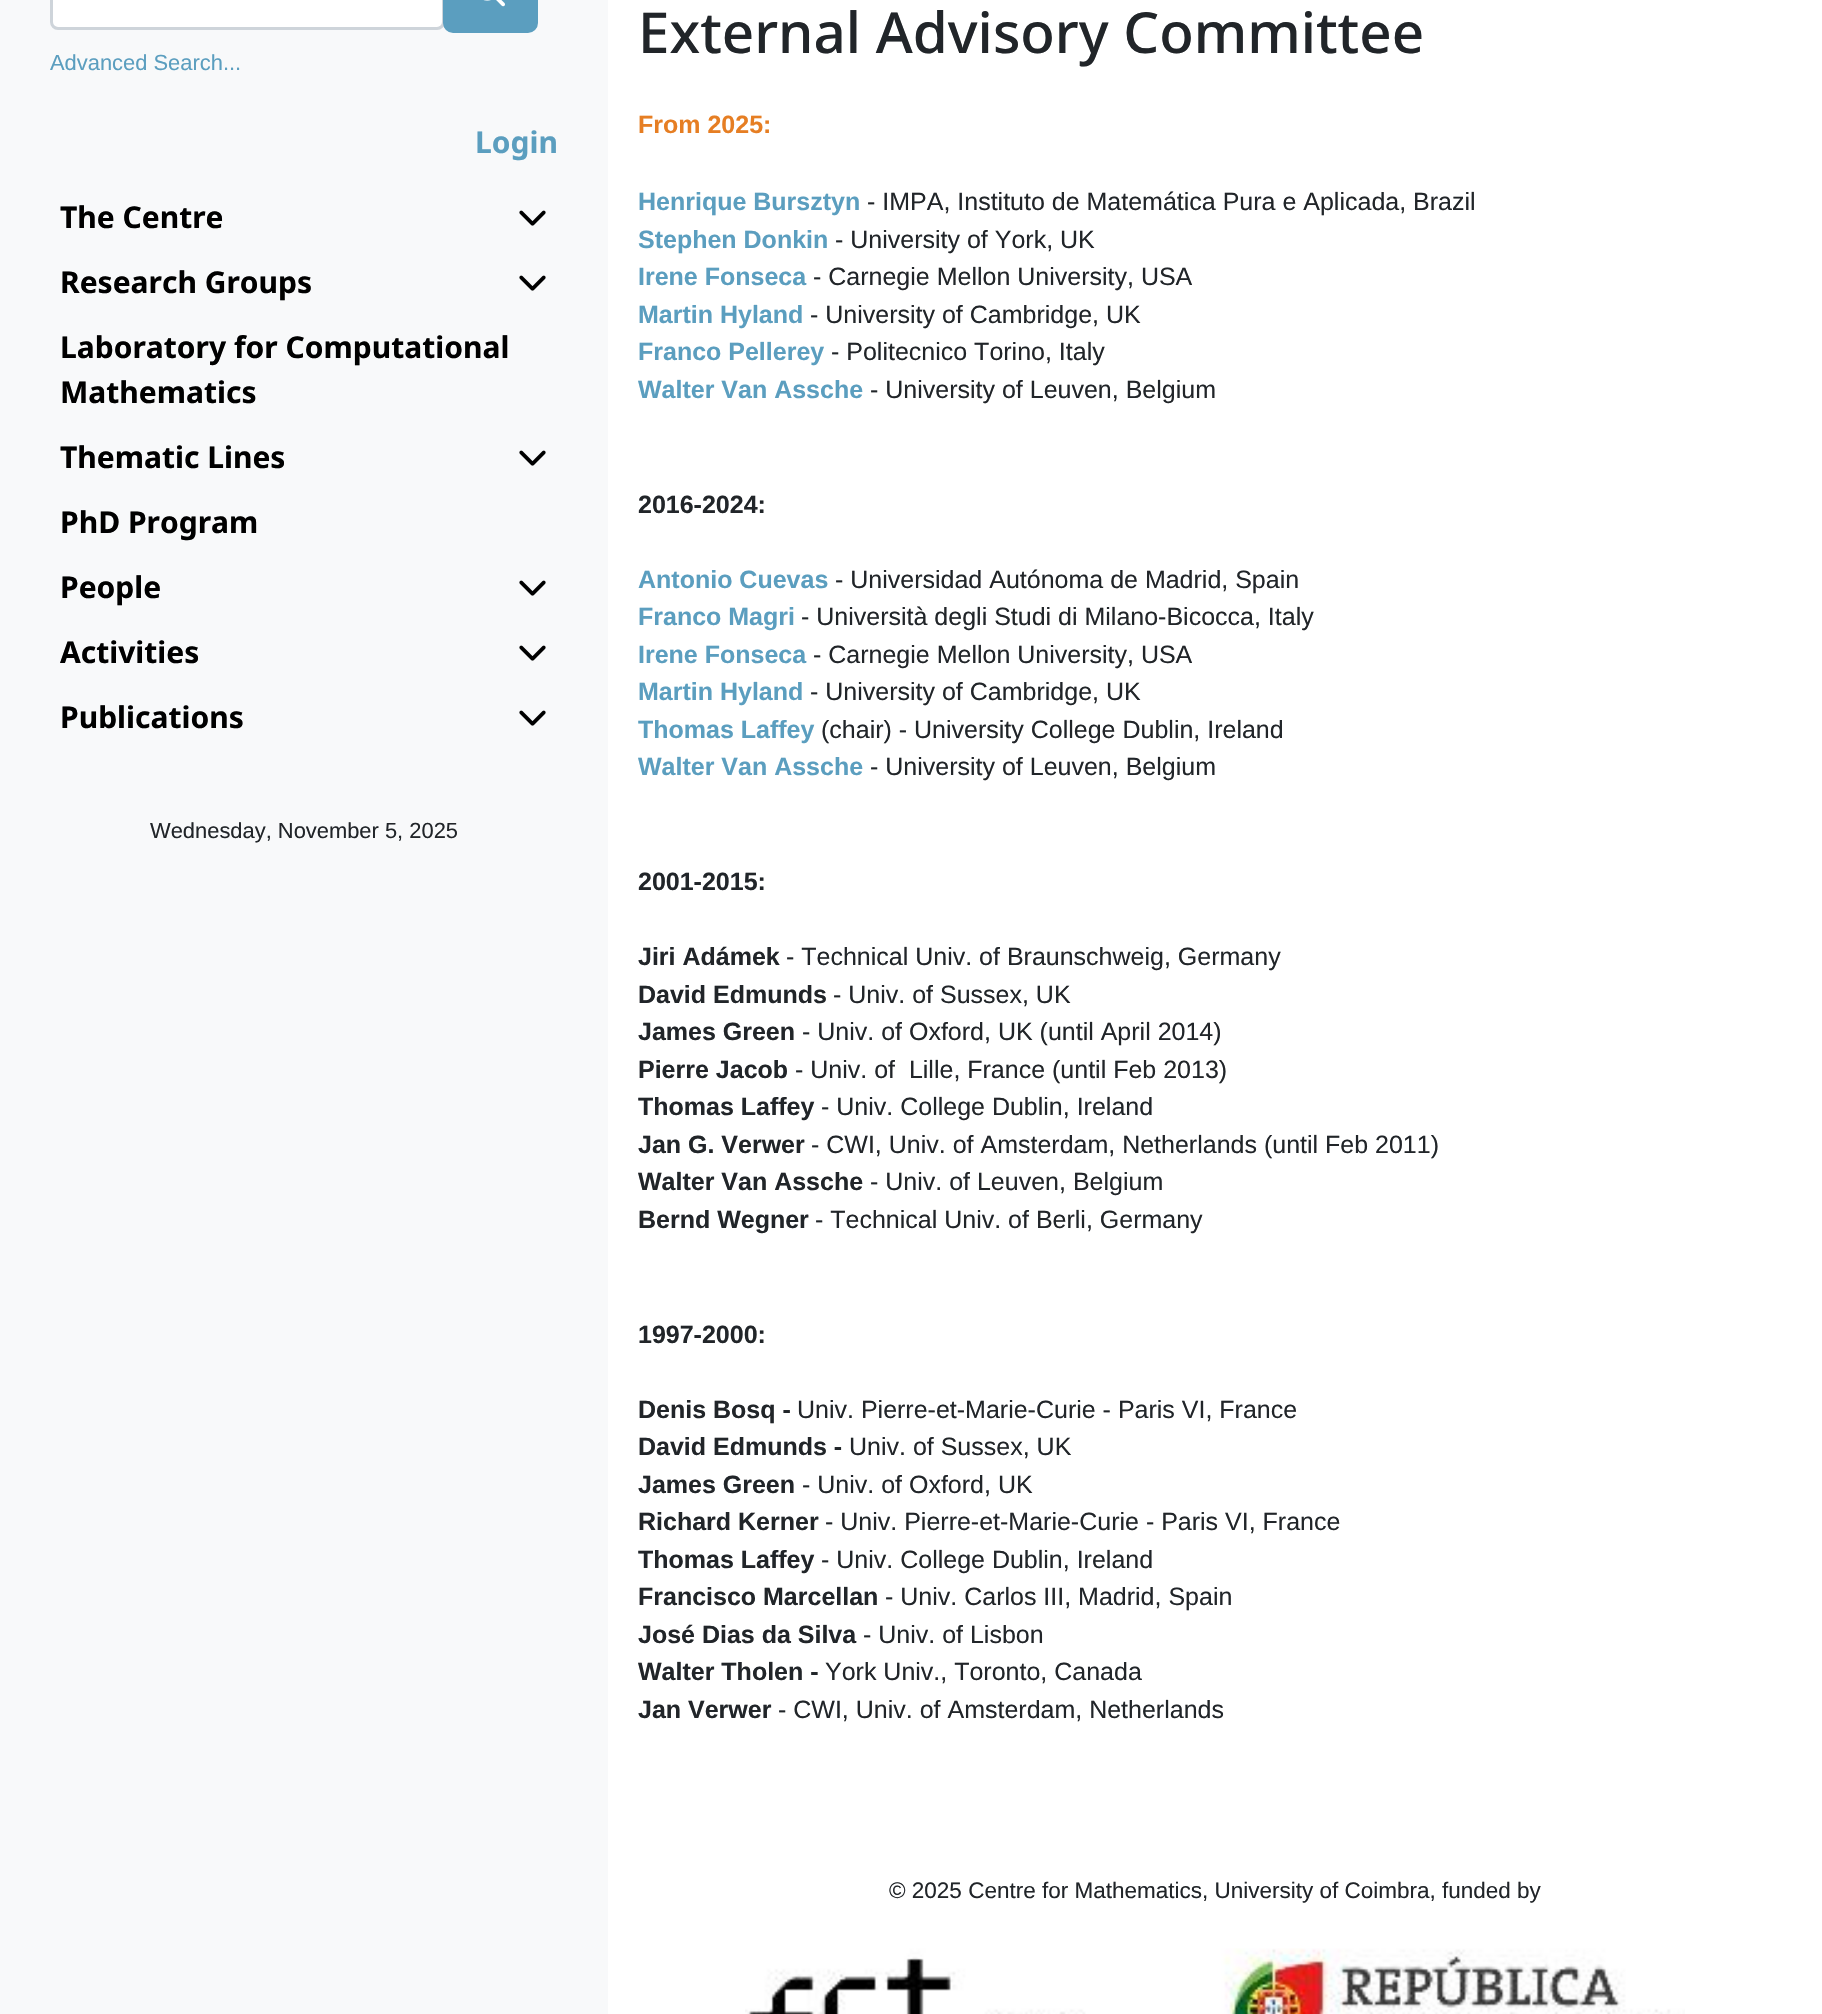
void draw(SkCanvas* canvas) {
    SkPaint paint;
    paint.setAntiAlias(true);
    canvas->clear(0xFFFFFFFF);
    paint.setColor(0xFFF8F9FA);
    canvas->drawRect(SkRect::MakeXYWH(0, 0, 608, 2014), paint);
    paint.setColor(0xFFFFFFFF);
    canvas->drawRoundRect(SkRect::MakeXYWH(53, -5, 390, 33), 5, 5, paint);
    paint.setStyle(SkPaint::kStroke_Style);
    paint.setStrokeWidth(3);
    paint.setColor(0xFFCED4DA);
    canvas->drawRoundRect(SkRect::MakeXYWH(51.5f, -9.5f, 392, 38), 6.5f, 6.5f, paint);
    paint.setStyle(SkPaint::kFill_Style);
    paint.setColor(0xFF5B9EBF);
    canvas->drawRoundRect(SkRect::MakeXYWH(444.5f, -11.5f, 92, 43), 8.5f, 8.5f, paint);
    paint.setStyle(SkPaint::kStroke_Style);
    canvas->drawRoundRect(SkRect::MakeXYWH(444.5f, -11.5f, 92, 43), 8.5f, 8.5f, paint);
    canvas->drawImageRect(SkImages::DeferredFromEncodedData(SkData::MakeFromFileName("img1.png")), SkRect::MakeXYWH(483, 0, 22, 7), SkSamplingOptions());
    SkFont font1(fontMgr->matchFamilyStyle("Liberation Sans", SkFontStyle::Normal()), 21.9f);
    font1.setSubpixel(true);
    paint.setStyle(SkPaint::kFill_Style);
    canvas->drawString("Advanced Search...", 50, 70, font1, paint);
    SkFont font2(fontMgr->matchFamilyStyle("Noto Sans", SkFontStyle::Bold()), 30);
    font2.setSubpixel(true);
    canvas->drawString("Login", 475, 153, font2, paint);
    paint.setColor(0xFF000000);
    canvas->drawString("The Centre", 60, 228, font2, paint);
    canvas->drawImageRect(SkImages::DeferredFromEncodedData(SkData::MakeFromFileName("img2.png")), SkRect::MakeXYWH(519, 210, 27, 16), SkSamplingOptions());
    canvas->drawString("Research Groups", 60, 293, font2, paint);
    canvas->drawImageRect(SkImages::DeferredFromEncodedData(SkData::MakeFromFileName("img2.png")), SkRect::MakeXYWH(519, 275, 27, 16), SkSamplingOptions());
    canvas->drawString("Laboratory for Computational", 60, 358, font2, paint);
    canvas->drawString("Mathematics", 60, 403, font2, paint);
    canvas->drawString("Thematic Lines", 60, 468, font2, paint);
    canvas->drawImageRect(SkImages::DeferredFromEncodedData(SkData::MakeFromFileName("img2.png")), SkRect::MakeXYWH(519, 450, 27, 16), SkSamplingOptions());
    canvas->drawString("PhD Program", 60, 533, font2, paint);
    canvas->drawString("People", 60, 598, font2, paint);
    canvas->drawImageRect(SkImages::DeferredFromEncodedData(SkData::MakeFromFileName("img2.png")), SkRect::MakeXYWH(519, 580, 27, 16), SkSamplingOptions());
    canvas->drawString("Activities", 60, 663, font2, paint);
    canvas->drawImageRect(SkImages::DeferredFromEncodedData(SkData::MakeFromFileName("img2.png")), SkRect::MakeXYWH(519, 645, 27, 16), SkSamplingOptions());
    canvas->drawString("Publications", 60, 728, font2, paint);
    canvas->drawImageRect(SkImages::DeferredFromEncodedData(SkData::MakeFromFileName("img2.png")), SkRect::MakeXYWH(519, 710, 27, 16), SkSamplingOptions());
    paint.setColor(0xFF212529);
    canvas->drawString("Wednesday, November 5, 2025", 150, 838, font1, paint);
    SkFont font3(fontMgr->matchFamilyStyle("Noto Sans", SkFontStyle(500, SkFontStyle::kNormal_Width, SkFontStyle::kUpright_Slant)), 56.5f);
    font3.setSubpixel(true);
    canvas->drawString("External Advisory Committee", 638, 53, font3, paint);
    SkFont font4(fontMgr->matchFamilyStyle("Liberation Sans", SkFontStyle::Bold()), 25);
    font4.setSubpixel(true);
    paint.setColor(0xFFE67E23);
    canvas->drawString("From 2025:", 638, 133, font4, paint);
    paint.setColor(0xFF5B9EBF);
    canvas->drawString("Henrique Bursztyn", 638, 210, font4, paint);
    SkFont font5(fontMgr->matchFamilyStyle("Liberation Sans", SkFontStyle::Normal()), 25);
    font5.setSubpixel(true);
    paint.setColor(0xFF212529);
    canvas->drawString("- IMPA, Instituto de Matemática Pura e Aplicada, Brazil", 867, 210, font5, paint);
    paint.setColor(0xFF5B9EBF);
    canvas->drawString("Stephen Donkin", 638, 248, font4, paint);
    paint.setColor(0xFF212529);
    canvas->drawString("- University of York, UK", 835, 248, font5, paint);
    paint.setColor(0xFF5B9EBF);
    canvas->drawString("Irene Fonseca", 638, 285, font4, paint);
    paint.setColor(0xFF212529);
    canvas->drawString("- Carnegie Mellon University, USA", 813, 285, font5, paint);
    paint.setColor(0xFF5B9EBF);
    canvas->drawString("Martin Hyland", 638, 323, font4, paint);
    paint.setColor(0xFF212529);
    canvas->drawString("- University of Cambridge, UK", 810, 323, font5, paint);
    paint.setColor(0xFF5B9EBF);
    canvas->drawString("Franco Pellerey", 638, 360, font4, paint);
    paint.setColor(0xFF212529);
    canvas->drawString("- Politecnico Torino, Italy", 831, 360, font5, paint);
    paint.setColor(0xFF5B9EBF);
    canvas->drawString("Walter Van Assche", 638, 398, font4, paint);
    paint.setColor(0xFF212529);
    canvas->drawString("- University of Leuven, Belgium", 870, 398, font5, paint);
    canvas->drawString("2016-2024:", 638, 513, font4, paint);
    paint.setColor(0xFF5B9EBF);
    canvas->drawString("Antonio Cuevas", 638, 588, font4, paint);
    paint.setColor(0xFF212529);
    canvas->drawString("- Universidad Autónoma de Madrid, Spain", 835, 588, font5, paint);
    paint.setColor(0xFF5B9EBF);
    canvas->drawString("Franco Magri", 638, 625, font4, paint);
    paint.setColor(0xFF212529);
    canvas->drawString("- Università degli Studi di Milano-Bicocca, Italy", 801, 625, font5, paint);
    paint.setColor(0xFF5B9EBF);
    canvas->drawString("Irene Fonseca", 638, 663, font4, paint);
    paint.setColor(0xFF212529);
    canvas->drawString("- Carnegie Mellon University, USA", 813, 663, font5, paint);
    paint.setColor(0xFF5B9EBF);
    canvas->drawString("Martin Hyland", 638, 700, font4, paint);
    paint.setColor(0xFF212529);
    canvas->drawString("- University of Cambridge, UK", 810, 700, font5, paint);
    paint.setColor(0xFF5B9EBF);
    canvas->drawString("Thomas Laffey", 638, 738, font4, paint);
    paint.setColor(0xFF212529);
    canvas->drawString("(chair) - University College Dublin, Ireland", 821, 738, font5, paint);
    paint.setColor(0xFF5B9EBF);
    canvas->drawString("Walter Van Assche", 638, 775, font4, paint);
    paint.setColor(0xFF212529);
    canvas->drawString("- University of Leuven, Belgium", 870, 775, font5, paint);
    canvas->drawString("2001-2015:", 638, 890, font4, paint);
    canvas->drawString("Jiri Adámek", 638, 965, font4, paint);
    canvas->drawString("- Technical Univ. of Braunschweig, Germany", 786, 965, font5, paint);
    canvas->drawString("David Edmunds", 638, 1003, font4, paint);
    canvas->drawString("- Univ. of Sussex, UK", 833, 1003, font5, paint);
    canvas->drawString("James Green", 638, 1040, font4, paint);
    canvas->drawString("- Univ. of Oxford, UK (until April 2014)", 802, 1040, font5, paint);
    canvas->drawString("Pierre Jacob", 638, 1078, font4, paint);
    canvas->drawString("- Univ. of  Lille, France (until Feb 2013)", 795, 1078, font5, paint);
    canvas->drawString("Thomas Laffey", 638, 1115, font4, paint);
    canvas->drawString("- Univ. College Dublin, Ireland", 821, 1115, font5, paint);
    canvas->drawString("Jan G. Verwer", 638, 1153, font4, paint);
    canvas->drawString("- CWI, Univ. of Amsterdam, Netherlands (until Feb 2011)", 811, 1153, font5, paint);
    canvas->drawString("Walter Van Assche", 638, 1190, font4, paint);
    canvas->drawString("- Univ. of Leuven, Belgium", 870, 1190, font5, paint);
    canvas->drawString("Bernd Wegner", 638, 1228, font4, paint);
    canvas->drawString("- Technical Univ. of Berli, Germany", 815, 1228, font5, paint);
    canvas->drawString("1997-2000:", 638, 1343, font4, paint);
    canvas->drawString("Denis Bosq -", 638, 1418, font4, paint);
    canvas->drawString("Univ. Pierre-et-Marie-Curie - Paris VI, France", 797, 1418, font5, paint);
    canvas->drawString("David Edmunds -", 638, 1455, font4, paint);
    canvas->drawString("Univ. of Sussex, UK", 849, 1455, font5, paint);
    canvas->drawString("James Green", 638, 1493, font4, paint);
    canvas->drawString("- Univ. of Oxford, UK", 802, 1493, font5, paint);
    canvas->drawString("Richard Kerner", 638, 1530, font4, paint);
    canvas->drawString("- Univ. Pierre-et-Marie-Curie - Paris VI, France", 825, 1530, font5, paint);
    canvas->drawString("Thomas Laffey", 638, 1568, font4, paint);
    canvas->drawString("- Univ. College Dublin, Ireland", 821, 1568, font5, paint);
    canvas->drawString("Francisco Marcellan", 638, 1605, font4, paint);
    canvas->drawString("- Univ. Carlos III, Madrid, Spain", 885, 1605, font5, paint);
    canvas->drawString("José Dias da Silva", 638, 1643, font4, paint);
    canvas->drawString("- Univ. of Lisbon", 863, 1643, font5, paint);
    canvas->drawString("Walter Tholen -", 638, 1680, font4, paint);
    canvas->drawString("York Univ., Toronto, Canada", 825, 1680, font5, paint);
    canvas->drawString("Jan Verwer", 638, 1718, font4, paint);
    canvas->drawString("- CWI, Univ. of Amsterdam, Netherlands", 778, 1718, font5, paint);
    SkFont font6(fontMgr->matchFamilyStyle("Liberation Sans", SkFontStyle::Normal()), 22.5f);
    font6.setSubpixel(true);
    canvas->drawString("© 2025 Centre for Mathematics, University of Coimbra, funded by", 889, 1898, font6, paint);
    canvas->drawImageRect(SkImages::DeferredFromEncodedData(SkData::MakeFromFileName("img3.png")), SkRect::MakeXYWH(745, 1948, 940, 66), SkSamplingOptions());
}
